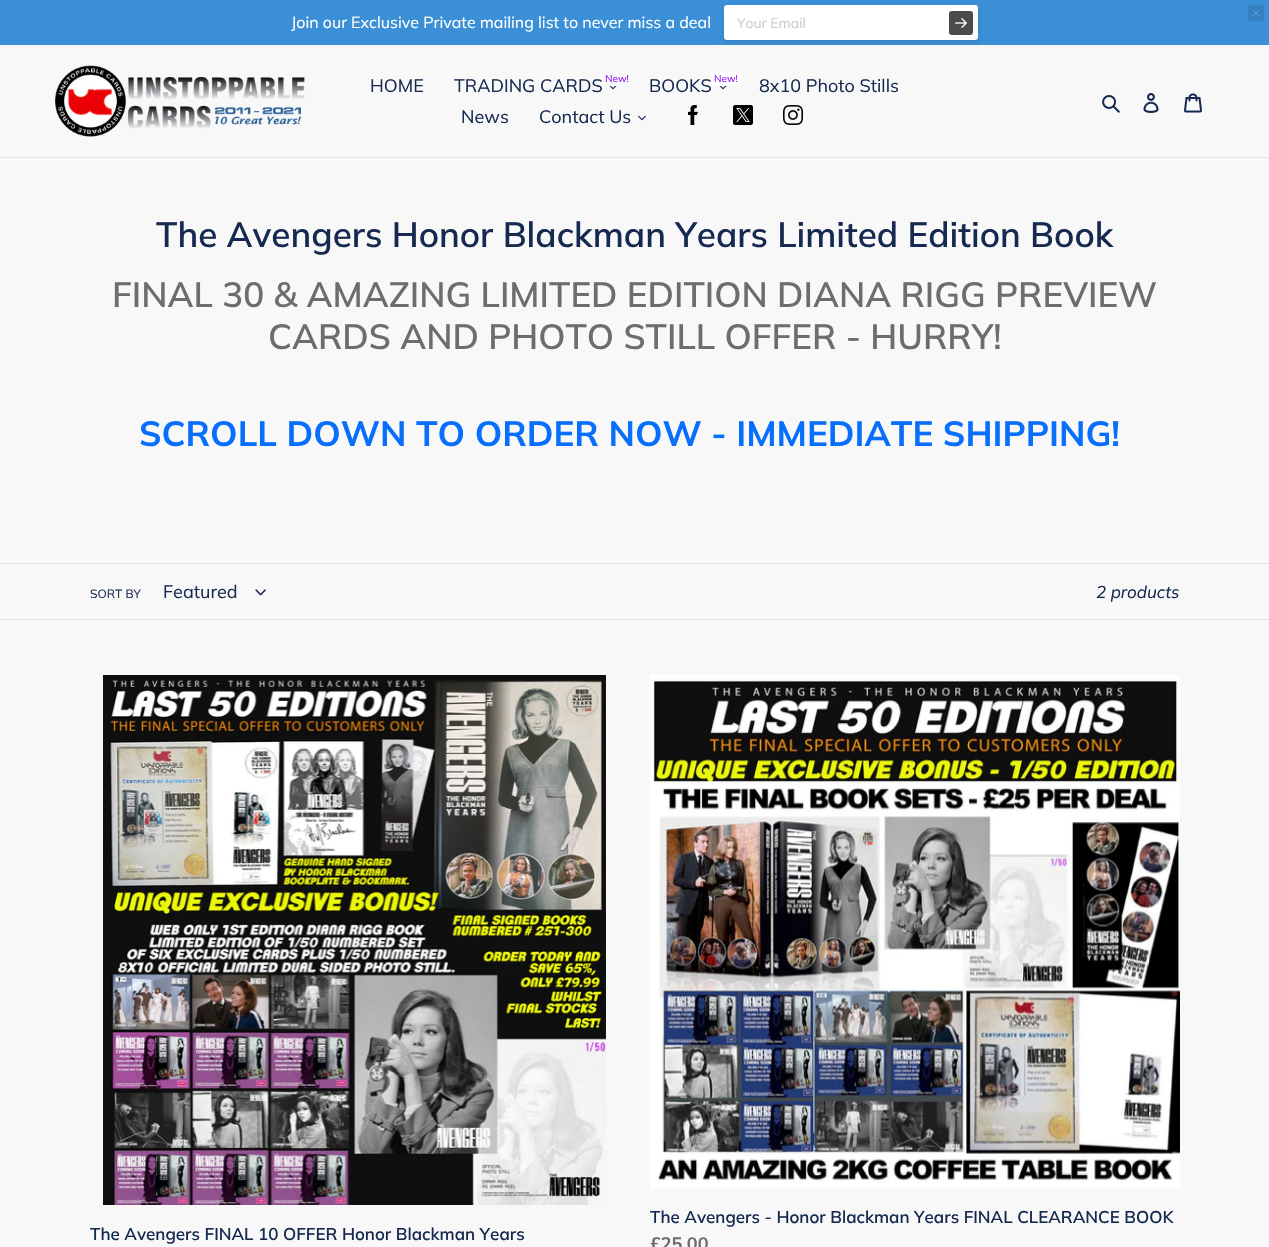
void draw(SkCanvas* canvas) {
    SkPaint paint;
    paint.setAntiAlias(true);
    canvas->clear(0xFFF8F8F8);
    paint.setColor(0xFF3B8FD7);
    canvas->drawRect(SkRect::MakeXYWH(0, 0, 1269, 45), paint);
    paint.setColor(0xFF3581C2);
    canvas->drawRoundRect(SkRect::MakeXYWH(1248, 5, 16, 16), 3, 3, paint);
    canvas->drawImageRect(SkImages::DeferredFromEncodedData(SkData::MakeFromFileName("img1.png")), SkRect::MakeXYWH(1253, 10, 6, 6), SkSamplingOptions());
    SkFont font1(fontMgr->matchFamilyStyle("Muli", SkFontStyle::Normal()), 16);
    font1.setSubpixel(true);
    paint.setColor(0xFFFFFFFF);
    canvas->drawString("Join our Exclusive Private mailing list to never miss a deal", 291, 28, font1, paint);
    paint.setColor(0x1A000000);
    paint.setMaskFilter(SkMaskFilter::MakeBlur(kNormal_SkBlurStyle, 2));
    canvas->drawRoundRect(SkRect::MakeXYWH(724, 7, 254, 35), 3, 3, paint);
    paint.setMaskFilter(nullptr);
    paint.setColor(0xFFFFFFFF);
    canvas->drawRoundRect(SkRect::MakeXYWH(724, 5, 254, 35), 3, 3, paint);
    SkFont font2(fontMgr->matchFamilyStyle("Muli", SkFontStyle::Normal()), 14);
    font2.setSubpixel(true);
    paint.setColor(0xFFCBCBCB);
    canvas->drawString("Your Email", 737, 28, font2, paint);
    paint.setColor(0xFF4B4B4B);
    canvas->drawRoundRect(SkRect::MakeXYWH(949, 11, 24, 24), 3, 3, paint);
    canvas->drawImageRect(SkImages::DeferredFromEncodedData(SkData::MakeFromFileName("img2.png")), SkRect::MakeXYWH(955, 18, 12, 10), SkSamplingOptions());
    paint.setColor(0xFFE4E4E4);
    canvas->drawRect(SkRect::MakeXYWH(0, 157, 1269, 1), paint);
    canvas->drawImageRect(SkImages::DeferredFromEncodedData(SkData::MakeFromFileName("img3.png")), SkRect::MakeXYWH(55, 65, 250, 72), SkSamplingOptions());
    SkFont font3(fontMgr->matchFamilyStyle("Muli", SkFontStyle::Normal()), 18);
    font3.setSubpixel(true);
    paint.setColor(0xFF162950);
    canvas->drawString("HOME", 370, 92, font3, paint);
    canvas->drawString("TRADING CARDS", 454, 92, font3, paint);
    SkFont font4(fontMgr->matchFamilyStyle("Muli", SkFontStyle::Normal()), 10);
    font4.setSubpixel(true);
    paint.setColor(0xFF9013FE);
    canvas->drawString("New!", 605, 82, font4, paint);
    canvas->drawImageRect(SkImages::DeferredFromEncodedData(SkData::MakeFromFileName("img4.png")), SkRect::MakeXYWH(609, 86, 8, 4), SkSamplingOptions());
    paint.setColor(0xFF162950);
    canvas->drawString("BOOKS", 649, 92, font3, paint);
    paint.setColor(0xFFFFFFFF);
    canvas->drawRoundRect(SkRect::MakeXYWH(711, 72, 30, 14), 1, 1, paint);
    paint.setColor(0xFF9013FE);
    canvas->drawString("New!", 714, 82, font4, paint);
    canvas->drawImageRect(SkImages::DeferredFromEncodedData(SkData::MakeFromFileName("img4.png")), SkRect::MakeXYWH(719, 86, 8, 4), SkSamplingOptions());
    paint.setColor(0xFF162950);
    canvas->drawString("8x10 Photo Stills", 759, 92, font3, paint);
    canvas->drawString("News", 461, 123, font3, paint);
    canvas->drawString("Contact Us", 539, 123, font3, paint);
    canvas->drawImageRect(SkImages::DeferredFromEncodedData(SkData::MakeFromFileName("img5.png")), SkRect::MakeXYWH(638, 115, 8, 6), SkSamplingOptions());
    canvas->drawImageRect(SkImages::DeferredFromEncodedData(SkData::MakeFromFileName("img6.png")), SkRect::MakeXYWH(688, 105, 10, 20), SkSamplingOptions());
    canvas->drawImageRect(SkImages::DeferredFromEncodedData(SkData::MakeFromFileName("img7.png")), SkRect::MakeXYWH(733, 105, 20, 20), SkSamplingOptions());
    canvas->drawImageRect(SkImages::DeferredFromEncodedData(SkData::MakeFromFileName("img8.png")), SkRect::MakeXYWH(783, 105, 20, 20), SkSamplingOptions());
    canvas->drawImageRect(SkImages::DeferredFromEncodedData(SkData::MakeFromFileName("img9.png")), SkRect::MakeXYWH(1102, 95, 18, 18), SkSamplingOptions());
    canvas->drawImageRect(SkImages::DeferredFromEncodedData(SkData::MakeFromFileName("img10.png")), SkRect::MakeXYWH(1143, 93, 16, 20), SkSamplingOptions());
    canvas->drawImageRect(SkImages::DeferredFromEncodedData(SkData::MakeFromFileName("img11.png")), SkRect::MakeXYWH(1184, 93, 18, 20), SkSamplingOptions());
    SkFont font5(fontMgr->matchFamilyStyle("Muli", SkFontStyle(600, SkFontStyle::kNormal_Width, SkFontStyle::kUpright_Slant)), 35);
    font5.setSubpixel(true);
    canvas->drawString("The Avengers Honor Blackman Years Limited Edition Book", 156, 247, font5, paint);
    paint.setColor(0xFF6D6D6D);
    canvas->drawString("FINAL 30 & AMAZING LIMITED EDITION DIANA RIGG PREVIEW", 112, 307, font5, paint);
    canvas->drawString("CARDS AND PHOTO STILL OFFER - HURRY!", 268, 349, font5, paint);
    SkFont font6(fontMgr->matchFamilyStyle("Muli", SkFontStyle::Bold()), 35);
    font6.setSubpixel(true);
    paint.setColor(0xFF086FFD);
    canvas->drawString("SCROLL DOWN TO ORDER NOW - IMMEDIATE SHIPPING!", 139, 446, font6, paint);
    paint.setColor(0xFFE4E4E4);
    canvas->drawRect(SkRect::MakeXYWH(0, 563, 1269, 1), paint);
    canvas->drawRect(SkRect::MakeXYWH(0, 619, 1269, 1), paint);
    SkFont font7(fontMgr->matchFamilyStyle("Muli", SkFontStyle::Normal()), 12);
    font7.setSubpixel(true);
    paint.setColor(0xFF162950);
    canvas->drawString("SORT BY", 90, 598, font7, paint);
    canvas->drawString("Featured", 163, 598, font3, paint);
    canvas->drawImageRect(SkImages::DeferredFromEncodedData(SkData::MakeFromFileName("img12.png")), SkRect::MakeXYWH(255, 589, 11, 7), SkSamplingOptions());
    SkFont font8(fontMgr->matchFamilyStyle("Muli", SkFontStyle::Italic()), 17);
    font8.setSubpixel(true);
    canvas->drawString("2 products", 1096, 598, font8, paint);
    canvas->drawImageRect(SkImages::DeferredFromEncodedData(SkData::MakeFromFileName("img13.png")), SkRect::MakeXYWH(103, 675, 503, 530), SkSamplingOptions());
    SkFont font9(fontMgr->matchFamilyStyle("Muli", SkFontStyle(600, SkFontStyle::kNormal_Width, SkFontStyle::kUpright_Slant)), 17);
    font9.setSubpixel(true);
    canvas->drawString("The Avengers FINAL 10 OFFER Honor Blackman Years", 90, 1240, font9, paint);
    canvas->drawImageRect(SkImages::DeferredFromEncodedData(SkData::MakeFromFileName("img14.png")), SkRect::MakeXYWH(650, 675, 530, 514), SkSamplingOptions());
    canvas->drawString("The Avengers - Honor Blackman Years FINAL CLEARANCE BOOK", 650, 1223, font9, paint);
    SkFont font10(fontMgr->matchFamilyStyle("Muli", SkFontStyle::Bold()), 18);
    font10.setSubpixel(true);
    paint.setColor(0xFF6D6D6D);
    canvas->drawString("£25.00", 650, 1250, font10, paint);
}
